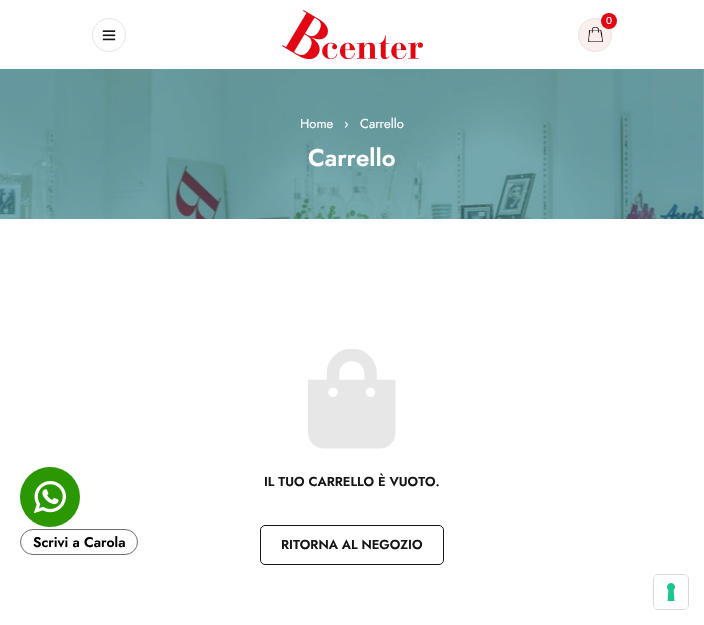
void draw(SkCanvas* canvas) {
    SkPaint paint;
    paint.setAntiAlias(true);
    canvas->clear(0xFFFFFFFF);
    paint.setColor(0xFF2A9703);
    canvas->drawCircle(50, 497, 30, paint);
    canvas->drawImageRect(SkImages::DeferredFromEncodedData(SkData::MakeFromFileName("img1.png")), SkRect::MakeXYWH(34, 481, 32, 32), SkSamplingOptions());
    paint.setStyle(SkPaint::kStroke_Style);
    paint.setStrokeWidth(1);
    paint.setColor(0xFF707070);
    canvas->drawRoundRect(SkRect::MakeXYWH(20.5f, 529.5f, 117, 25), 12.5f, 12.5f, paint);
    SkFont font1(fontMgr->matchFamilyStyle("Jost", SkFontStyle(600, SkFontStyle::kNormal_Width, SkFontStyle::kUpright_Slant)), 14);
    font1.setSubpixel(true);
    paint.setStyle(SkPaint::kFill_Style);
    paint.setColor(0xFF000000);
    canvas->drawString("Scrivi a Carola", 33, 547, font1, paint);
    paint.setStyle(SkPaint::kStroke_Style);
    paint.setColor(0xFFE5E5E5);
    canvas->drawCircle(109, 35, 16.5f, paint);
    canvas->drawImageRect(SkImages::DeferredFromEncodedData(SkData::MakeFromFileName("img2.png")), SkRect::MakeXYWH(102, 30, 14, 11), SkSamplingOptions());
    canvas->drawImageRect(SkImages::DeferredFromEncodedData(SkData::MakeFromFileName("img3.png")), SkRect::MakeXYWH(282, 10, 141, 49), SkSamplingOptions());
    paint.setStyle(SkPaint::kFill_Style);
    paint.setColor(0xFFFBF0EE);
    canvas->drawCircle(595, 35, 16.5f, paint);
    paint.setStyle(SkPaint::kStroke_Style);
    paint.setColor(0xFFE5E5E5);
    canvas->drawCircle(595, 35, 16.5f, paint);
    canvas->drawImageRect(SkImages::DeferredFromEncodedData(SkData::MakeFromFileName("img4.png")), SkRect::MakeXYWH(588, 27, 15, 15), SkSamplingOptions());
    paint.setStyle(SkPaint::kFill_Style);
    paint.setColor(0xFFE30613);
    canvas->drawCircle(609, 21, 8, paint);
    SkFont font2(fontMgr->matchFamilyStyle("Jost", SkFontStyle::Normal()), 10);
    font2.setSubpixel(true);
    paint.setColor(0xFFFFFFFF);
    canvas->drawString("0", 606, 24, font2, paint);
    canvas->drawImageRect(SkImages::DeferredFromEncodedData(SkData::MakeFromFileName("img5.png")), SkRect::MakeXYWH(0, 69, 704, 150), SkSamplingOptions());
    SkFont font3(fontMgr->matchFamilyStyle("Jost", SkFontStyle::Normal()), 13);
    font3.setSubpixel(true);
    canvas->drawString("Home", 300, 128, font3, paint);
    canvas->drawString("›", 344, 128, font3, paint);
    canvas->drawString("Carrello", 360, 128, font3, paint);
    SkFont font4(fontMgr->matchFamilyStyle("Jost", SkFontStyle(600, SkFontStyle::kNormal_Width, SkFontStyle::kUpright_Slant)), 24);
    font4.setSubpixel(true);
    canvas->drawString("Carrello", 308, 166, font4, paint);
    canvas->drawImageRect(SkImages::DeferredFromEncodedData(SkData::MakeFromFileName("img6.png")), SkRect::MakeXYWH(308, 349, 88, 100), SkSamplingOptions());
    SkFont font5(fontMgr->matchFamilyStyle("Jost", SkFontStyle(600, SkFontStyle::kNormal_Width, SkFontStyle::kUpright_Slant)), 13);
    font5.setSubpixel(true);
    paint.setColor(0xFF161616);
    canvas->drawString("IL TUO CARRELLO È VUOTO.", 264, 486, font5, paint);
    paint.setStyle(SkPaint::kStroke_Style);
    canvas->drawRoundRect(SkRect::MakeXYWH(260.5f, 525.5f, 183, 39), 4.5f, 4.5f, paint);
    paint.setStyle(SkPaint::kFill_Style);
    canvas->drawString("RITORNA AL NEGOZIO", 281, 549, font5, paint);
    paint.setStyle(SkPaint::kStroke_Style);
    paint.setColor(0xFFD9D9D9);
    canvas->drawRoundRect(SkRect::MakeXYWH(653.5f, 574.5f, 35, 35), 4.5f, 4.5f, paint);
    paint.setStyle(SkPaint::kFill_Style);
    paint.setColor(0xFFFFFFFF);
    canvas->drawRoundRect(SkRect::MakeXYWH(654, 575, 34, 34), 4, 4, paint);
    canvas->drawImageRect(SkImages::DeferredFromEncodedData(SkData::MakeFromFileName("img7.png")), SkRect::MakeXYWH(667, 583, 8, 18), SkSamplingOptions());
}
